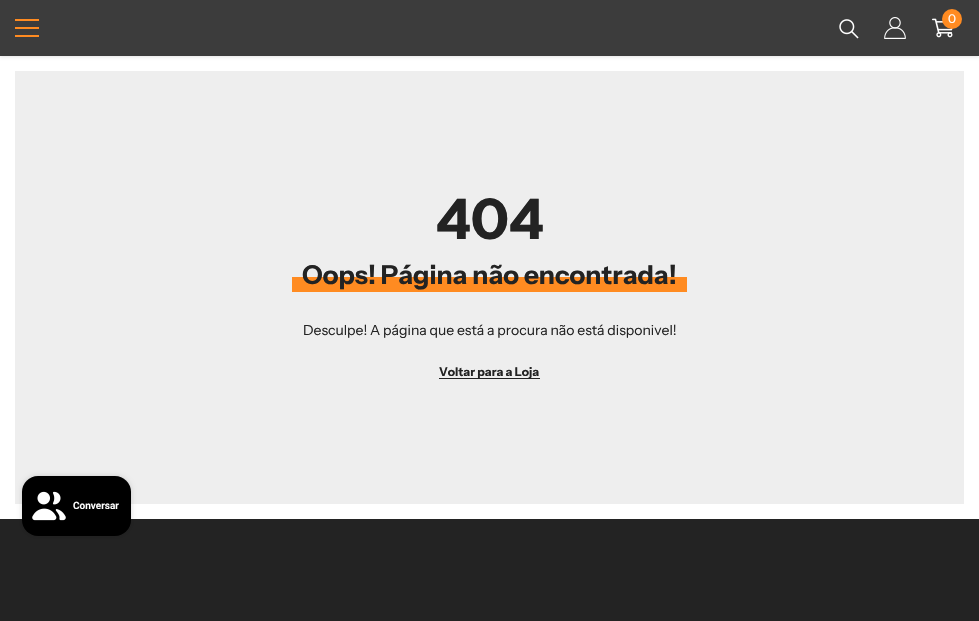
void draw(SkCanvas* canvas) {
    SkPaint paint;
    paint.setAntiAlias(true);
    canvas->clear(0xFFFFFFFF);
    paint.setColor(0x1A000000);
    paint.setMaskFilter(SkMaskFilter::MakeBlur(kNormal_SkBlurStyle, 1.5f));
    canvas->drawRect(SkRect::MakeXYWH(0, 1, 979, 56), paint);
    paint.setMaskFilter(nullptr);
    paint.setColor(0xFF3C3C3C);
    canvas->drawRect(SkRect::MakeXYWH(0, 0, 979, 56), paint);
    paint.setColor(0xFFFF8B21);
    canvas->drawRect(SkRect::MakeXYWH(15, 27, 24, 2), paint);
    canvas->drawRect(SkRect::MakeXYWH(15, 19, 24, 2), paint);
    canvas->drawRect(SkRect::MakeXYWH(15, 35, 24, 2), paint);
    canvas->drawImageRect(SkImages::DeferredFromEncodedData(SkData::MakeFromFileName("img1.png")), SkRect::MakeXYWH(839, 19, 20, 20), SkSamplingOptions());
    canvas->drawImageRect(SkImages::DeferredFromEncodedData(SkData::MakeFromFileName("img2.png")), SkRect::MakeXYWH(884, 17, 22, 22), SkSamplingOptions());
    canvas->drawImageRect(SkImages::DeferredFromEncodedData(SkData::MakeFromFileName("img3.png")), SkRect::MakeXYWH(932, 18, 21, 20), SkSamplingOptions());
    canvas->drawCircle(952, 19, 10, paint);
    SkFont font1(fontMgr->matchFamilyStyle("Instrument Sans", SkFontStyle::Normal()), 12);
    font1.setSubpixel(true);
    paint.setColor(0xFFFFFFFF);
    canvas->drawString("0", 948, 23, font1, paint);
    paint.setColor(0xFFEEEEEE);
    canvas->drawRect(SkRect::MakeXYWH(15, 71, 949, 433), paint);
    SkFont font2(fontMgr->matchFamilyStyle("Instrument Sans", SkFontStyle::Bold()), 56);
    font2.setSubpixel(true);
    paint.setColor(0xFF232323);
    canvas->drawString("404", 436, 239, font2, paint);
    paint.setColor(0xFFFF8B21);
    canvas->drawRect(SkRect::MakeXYWH(292, 277, 395, 15), paint);
    SkFont font3(fontMgr->matchFamilyStyle("Instrument Sans", SkFontStyle::Bold()), 26);
    font3.setSubpixel(true);
    paint.setColor(0xFF232323);
    canvas->drawString("Oops! Página não encontrada!", 302, 284, font3, paint);
    SkFont font4(fontMgr->matchFamilyStyle("Instrument Sans", SkFontStyle::Normal()), 14);
    font4.setSubpixel(true);
    canvas->drawString("Desculpe! A página que está a procura não está disponivel!", 303, 335, font4, paint);
    canvas->drawRect(SkRect::MakeXYWH(439, 378, 101, 1), paint);
    SkFont font5(fontMgr->matchFamilyStyle("Instrument Sans", SkFontStyle::Bold()), 12);
    font5.setSubpixel(true);
    canvas->drawString("Voltar para a Loja", 439, 376, font5, paint);
    canvas->drawRect(SkRect::MakeXYWH(0, 519, 979, 102), paint);
    paint.setColor(0x26000000);
    paint.setMaskFilter(SkMaskFilter::MakeBlur(kNormal_SkBlurStyle, 2.5f));
    canvas->drawRoundRect(SkRect::MakeXYWH(22, 476, 109, 60), 16, 16, paint);
    paint.setMaskFilter(nullptr);
    paint.setColor(0xFF000000);
    canvas->drawRoundRect(SkRect::MakeXYWH(22, 476, 109, 60), 16, 16, paint);
    canvas->drawImageRect(SkImages::DeferredFromEncodedData(SkData::MakeFromFileName("img4.png")), SkRect::MakeXYWH(32, 491, 34, 30), SkSamplingOptions());
    SkFont font6(fontMgr->matchFamilyStyle("Roboto", SkFontStyle(600, SkFontStyle::kNormal_Width, SkFontStyle::kUpright_Slant)), 10);
    font6.setSubpixel(true);
    paint.setColor(0xFFFFFFFF);
    canvas->drawString("Conversar", 73, 509, font6, paint);
}
